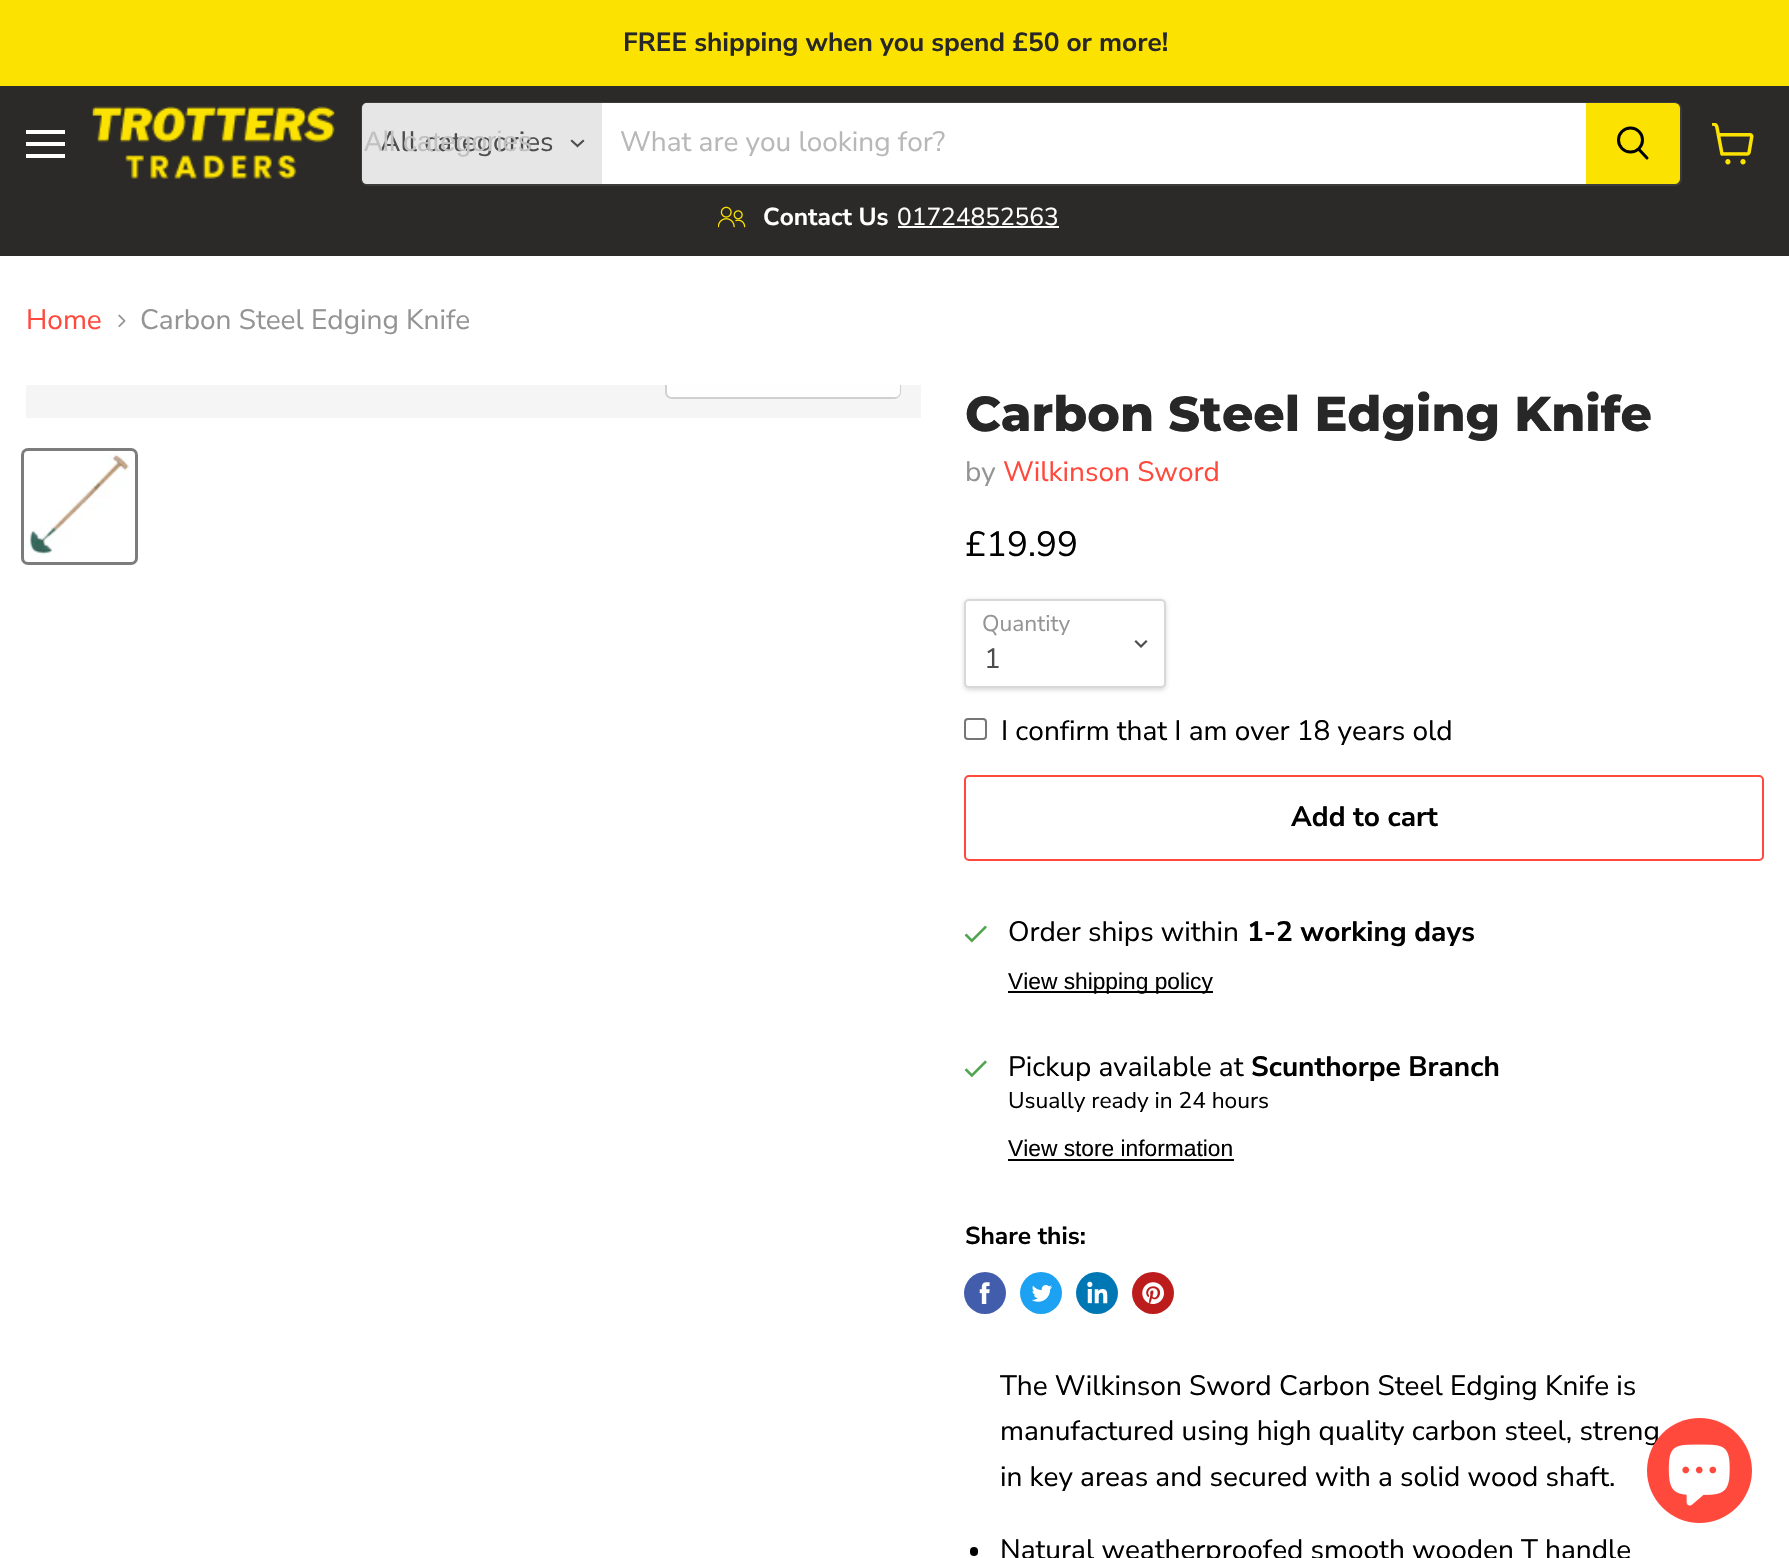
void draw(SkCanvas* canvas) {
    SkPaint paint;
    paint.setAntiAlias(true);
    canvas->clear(0xFFFFFFFF);
    paint.setColor(0xFFFBE200);
    canvas->drawRect(SkRect::MakeXYWH(0, 0, 1789, 86), paint);
    SkFont font1(fontMgr->matchFamilyStyle("Nunito Sans", SkFontStyle::Bold()), 26.25f);
    font1.setSubpixel(true);
    paint.setColor(0xFF272727);
    canvas->drawString("FREE shipping when you spend £50 or more!", 623, 51, font1, paint);
    paint.setColor(0xFF2B2A29);
    canvas->drawRect(SkRect::MakeXYWH(0, 86, 1789, 170), paint);
    paint.setColor(0xFFFFFFFF);
    canvas->drawRect(SkRect::MakeXYWH(26, 130, 39, 4), paint);
    canvas->drawRect(SkRect::MakeXYWH(26, 142, 39, 4), paint);
    canvas->drawRect(SkRect::MakeXYWH(26, 154, 39, 4), paint);
    canvas->drawImageRect(SkImages::DeferredFromEncodedData(SkData::MakeFromFileName("img1.png")), SkRect::MakeXYWH(92, 106, 243, 73), SkSamplingOptions());
    paint.setStyle(SkPaint::kStroke_Style);
    paint.setStrokeWidth(2);
    paint.setColor(0x33808080);
    canvas->drawRoundRect(SkRect::MakeXYWH(362, 103, 1319, 82), 6, 6, paint);
    paint.setStyle(SkPaint::kFill_Style);
    paint.setColor(0xFFE6E6E6);
    canvas->drawPath(SkPathBuilder().moveTo(367, 103).lineTo(602, 103).lineTo(602, 184).lineTo(367, 184).cubicTo(364, 184, 362, 182, 362, 179).lineTo(362, 108).cubicTo(362, 105, 364, 103, 367, 103).close().detach(), paint);
    SkFont font2(fontMgr->matchFamilyStyle("Nunito Sans", SkFontStyle::Normal()), 28);
    font2.setSubpixel(true);
    paint.setColor(0xFF4D4D4D);
    canvas->drawString("All categories", 380, 151, font2, paint);
    SkFont font3(fontMgr->matchFamilyStyle("Liberation Sans", SkFontStyle::Normal()), 28);
    font3.setSubpixel(true);
    paint.setColor(0xFFC1C1C1);
    canvas->drawString("All categories", 364, 151, font3, paint);
    paint.setStyle(SkPaint::kStroke_Style);
    paint.setStrokeWidth(2.2f);
    paint.setStrokeCap(SkPaint::kSquare_Cap);
    paint.setColor(0xFF4D4D4D);
    canvas->drawPath(SkPathBuilder().moveTo(577.5f, 146).lineTo(583, 141).moveTo(577.5f, 146).lineTo(572, 141).detach(), paint);
    paint.setStyle(SkPaint::kFill_Style);
    paint.setColor(0xFFFFFFFF);
    canvas->drawRect(SkRect::MakeXYWH(602, 103, 984, 81), paint);
    paint.setColor(0xFFB8B8B8);
    canvas->drawString("What are you looking for?", 620, 151, font2, paint);
    paint.setColor(0xFFFBE200);
    canvas->drawPath(SkPathBuilder().moveTo(1587, 104).lineTo(1675, 104).cubicTo(1677, 104, 1679, 106, 1679, 108).lineTo(1679, 179).cubicTo(1679, 181, 1677, 183, 1675, 183).lineTo(1587, 183).close().detach(), paint);
    paint.setStyle(SkPaint::kStroke_Style);
    paint.setStrokeWidth(2);
    paint.setStrokeCap(SkPaint::kButt_Cap);
    canvas->drawPath(SkPathBuilder().moveTo(1587, 104).lineTo(1675, 104).cubicTo(1677, 104, 1679, 106, 1679, 108).lineTo(1679, 179).cubicTo(1679, 181, 1677, 183, 1675, 183).lineTo(1587, 183).close().detach(), paint);
    paint.setStrokeWidth(3);
    paint.setStrokeCap(SkPaint::kRound_Cap);
    paint.setColor(0xFF000000);
    canvas->drawPath(SkPathBuilder().moveTo(1647, 158).lineTo(1639, 149.5f).detach(), paint);
    paint.setStrokeCap(SkPaint::kButt_Cap);
    canvas->drawCircle(1630.5f, 140, 12, paint);
    canvas->drawImageRect(SkImages::DeferredFromEncodedData(SkData::MakeFromFileName("img2.png")), SkRect::MakeXYWH(718, 206, 28, 22), SkSamplingOptions());
    SkFont font4(fontMgr->matchFamilyStyle("Nunito Sans", SkFontStyle::Bold()), 24.5f);
    font4.setSubpixel(true);
    paint.setStyle(SkPaint::kFill_Style);
    paint.setColor(0xFFFFFFFF);
    canvas->drawString("Contact Us", 763, 225, font4, paint);
    SkFont font5(fontMgr->matchFamilyStyle("Nunito Sans", SkFontStyle::Normal()), 24.5f);
    font5.setSubpixel(true);
    canvas->drawString("01724852563", 897, 225, font5, paint);
    canvas->drawRect(SkRect::MakeXYWH(898, 226, 161, 2), paint);
    canvas->drawImageRect(SkImages::DeferredFromEncodedData(SkData::MakeFromFileName("img3.png")), SkRect::MakeXYWH(1712, 123, 42, 42), SkSamplingOptions());
    paint.setColor(0xFFFF493D);
    canvas->drawString("Home", 26, 329, font2, paint);
    canvas->drawImageRect(SkImages::DeferredFromEncodedData(SkData::MakeFromFileName("img4.png")), SkRect::MakeXYWH(118, 314, 8, 14), SkSamplingOptions());
    paint.setColor(0xFF949494);
    canvas->drawString("Carbon Steel Edging Knife", 140, 329, font2, paint);
    paint.setColor(0xFFF5F5F5);
    canvas->drawRect(SkRect::MakeXYWH(26, 385, 895, 33), paint);
    canvas->save();
    canvas->clipRect(SkRect::MakeXYWH(26, 385, 895, 33));
    paint.setStyle(SkPaint::kStroke_Style);
    paint.setStrokeWidth(2);
    paint.setColor(0xFFD0D0D0);
    canvas->drawRoundRect(SkRect::MakeXYWH(666, 348, 234, 50), 6, 6, paint);
    canvas->restore();
    paint.setStyle(SkPaint::kFill_Style);
    paint.setColor(0xE6FFFFFF);
    canvas->drawPath(SkPathBuilder().moveTo(667, 385).lineTo(900, 385).lineTo(900, 392).cubicTo(900, 395, 898, 397, 895, 397).lineTo(672, 397).cubicTo(669, 397, 667, 395, 667, 392).close().detach(), paint);
    paint.setStyle(SkPaint::kStroke_Style);
    paint.setStrokeWidth(3);
    paint.setColor(0xFF7C7C7C);
    canvas->drawRoundRect(SkRect::MakeXYWH(22.5f, 449.5f, 114, 114), 5.5f, 5.5f, paint);
    canvas->drawImageRect(SkImages::DeferredFromEncodedData(SkData::MakeFromFileName("img5.png")), SkRect::MakeXYWH(28, 454, 101, 101), SkSamplingOptions());
    SkFont font6(fontMgr->matchFamilyStyle("Montserrat", SkFontStyle(800, SkFontStyle::kNormal_Width, SkFontStyle::kUpright_Slant)), 49);
    font6.setSubpixel(true);
    paint.setStyle(SkPaint::kFill_Style);
    paint.setColor(0xFF272727);
    canvas->drawString("Carbon Steel Edging Knife", 965, 431, font6, paint);
    paint.setColor(0xFF949494);
    canvas->drawString("by", 965, 481, font2, paint);
    paint.setColor(0xFFFF493D);
    canvas->drawString("Wilkinson Sword", 1003, 481, font2, paint);
    SkFont font7(fontMgr->matchFamilyStyle("Nunito Sans", SkFontStyle::Normal()), 35);
    font7.setSubpixel(true);
    paint.setColor(0xFF000000);
    canvas->drawString("£19.99", 965, 556, font7, paint);
    paint.setColor(0x26000000);
    paint.setMaskFilter(SkMaskFilter::MakeBlur(kNormal_SkBlurStyle, 2));
    canvas->drawRoundRect(SkRect::MakeXYWH(964, 600, 202, 90), 5, 5, paint);
    paint.setMaskFilter(nullptr);
    paint.setColor(0xFFFFFFFF);
    canvas->drawRoundRect(SkRect::MakeXYWH(965, 600, 200, 87), 4, 4, paint);
    paint.setStyle(SkPaint::kStroke_Style);
    paint.setStrokeWidth(2);
    paint.setColor(0xFFD8D8D8);
    canvas->drawRoundRect(SkRect::MakeXYWH(965, 600, 200, 87), 4, 4, paint);
    SkFont font8(fontMgr->matchFamilyStyle("Nunito Sans", SkFontStyle::Normal()), 22.75f);
    font8.setSubpixel(true);
    paint.setStyle(SkPaint::kFill_Style);
    paint.setColor(0xFF949494);
    canvas->drawString("Quantity", 982, 631, font8, paint);
    paint.setStyle(SkPaint::kStroke_Style);
    paint.setStrokeWidth(2.2f);
    paint.setStrokeCap(SkPaint::kSquare_Cap);
    paint.setColor(0xFF4D4D4D);
    canvas->drawPath(SkPathBuilder().moveTo(1141, 646.5f).lineTo(1146, 641.5f).moveTo(1141, 646.5f).lineTo(1136, 641.5f).detach(), paint);
    paint.setStyle(SkPaint::kFill_Style);
    canvas->drawString("1", 984, 668, font2, paint);
    paint.setStyle(SkPaint::kStroke_Style);
    paint.setStrokeWidth(2);
    paint.setStrokeCap(SkPaint::kButt_Cap);
    paint.setColor(0xFF767676);
    canvas->drawRoundRect(SkRect::MakeXYWH(965, 719, 21, 20), 3, 3, paint);
    paint.setStyle(SkPaint::kFill_Style);
    paint.setColor(0xFF000000);
    canvas->drawString("I confirm that I am over 18 years old", 1001, 740, font2, paint);
    paint.setStyle(SkPaint::kStroke_Style);
    paint.setColor(0xFFFF493D);
    canvas->drawRoundRect(SkRect::MakeXYWH(965, 776, 798, 84), 4, 4, paint);
    SkFont font9(fontMgr->matchFamilyStyle("Nunito Sans", SkFontStyle::Bold()), 28);
    font9.setSubpixel(true);
    paint.setStyle(SkPaint::kFill_Style);
    paint.setColor(0xFF000000);
    canvas->drawString("Add to cart", 1291, 826, font9, paint);
    canvas->drawImageRect(SkImages::DeferredFromEncodedData(SkData::MakeFromFileName("img6.png")), SkRect::MakeXYWH(964, 925, 23, 18), SkSamplingOptions());
    canvas->drawString("Order ships within", 1008, 941, font2, paint);
    canvas->drawString("1-2 working days", 1247, 941, font9, paint);
    canvas->drawRect(SkRect::MakeXYWH(1008, 991, 205, 2), paint);
    SkFont font10(fontMgr->matchFamilyStyle("Liberation Sans", SkFontStyle::Normal()), 22.75f);
    font10.setSubpixel(true);
    canvas->drawString("View shipping policy", 1008, 989, font10, paint);
    canvas->drawImageRect(SkImages::DeferredFromEncodedData(SkData::MakeFromFileName("img7.png")), SkRect::MakeXYWH(964, 1060, 23, 18), SkSamplingOptions());
    canvas->drawString("Pickup available at", 1008, 1076, font2, paint);
    canvas->drawString("Scunthorpe Branch", 1251, 1076, font9, paint);
    canvas->drawString("Usually ready in 24 hours", 1008, 1108, font8, paint);
    canvas->drawString("View store information", 1008, 1156, font10, paint);
    canvas->drawRect(SkRect::MakeXYWH(1008, 1159, 226, 2), paint);
    canvas->drawString("Share this:", 965, 1244, font4, paint);
    paint.setColor(0xFF425DAB);
    canvas->drawCircle(985, 1293, 21, paint);
    canvas->drawImageRect(SkImages::DeferredFromEncodedData(SkData::MakeFromFileName("img8.png")), SkRect::MakeXYWH(979, 1282, 11, 22), SkSamplingOptions());
    paint.setColor(0xFF1DA1F2);
    canvas->drawCircle(1041, 1293, 21, paint);
    canvas->drawImageRect(SkImages::DeferredFromEncodedData(SkData::MakeFromFileName("img9.png")), SkRect::MakeXYWH(1031, 1285, 22, 17), SkSamplingOptions());
    paint.setColor(0xFF0077B5);
    canvas->drawCircle(1097, 1293, 21, paint);
    canvas->drawImageRect(SkImages::DeferredFromEncodedData(SkData::MakeFromFileName("img10.png")), SkRect::MakeXYWH(1087, 1281, 21, 23), SkSamplingOptions());
    paint.setColor(0xFFBD1C1C);
    canvas->drawCircle(1153, 1293, 21, paint);
    canvas->drawImageRect(SkImages::DeferredFromEncodedData(SkData::MakeFromFileName("img11.png")), SkRect::MakeXYWH(1142, 1282, 22, 22), SkSamplingOptions());
    paint.setColor(0xFF000000);
    canvas->drawString("The Wilkinson Sword Carbon Steel Edging Knife is", 1000, 1395, font2, paint);
    canvas->drawString("manufactured using high quality carbon steel, streng", 1000, 1440, font2, paint);
    canvas->drawString("in key areas and secured with a solid wood shaft.", 1000, 1486, font2, paint);
    canvas->drawRoundRect(SkRect::MakeXYWH(970, 1547, 8, 9), 4, 4, paint);
    canvas->drawString("Natural weatherproofed smooth wooden T handle", 1000, 1559, font2, paint);
    paint.setColor(0xFFFF493D);
    canvas->drawCircle(1699.5f, 1470.5f, 52.5f, paint);
    canvas->drawImageRect(SkImages::DeferredFromEncodedData(SkData::MakeFromFileName("img12.png")), SkRect::MakeXYWH(1668, 1444, 62, 62), SkSamplingOptions());
}
